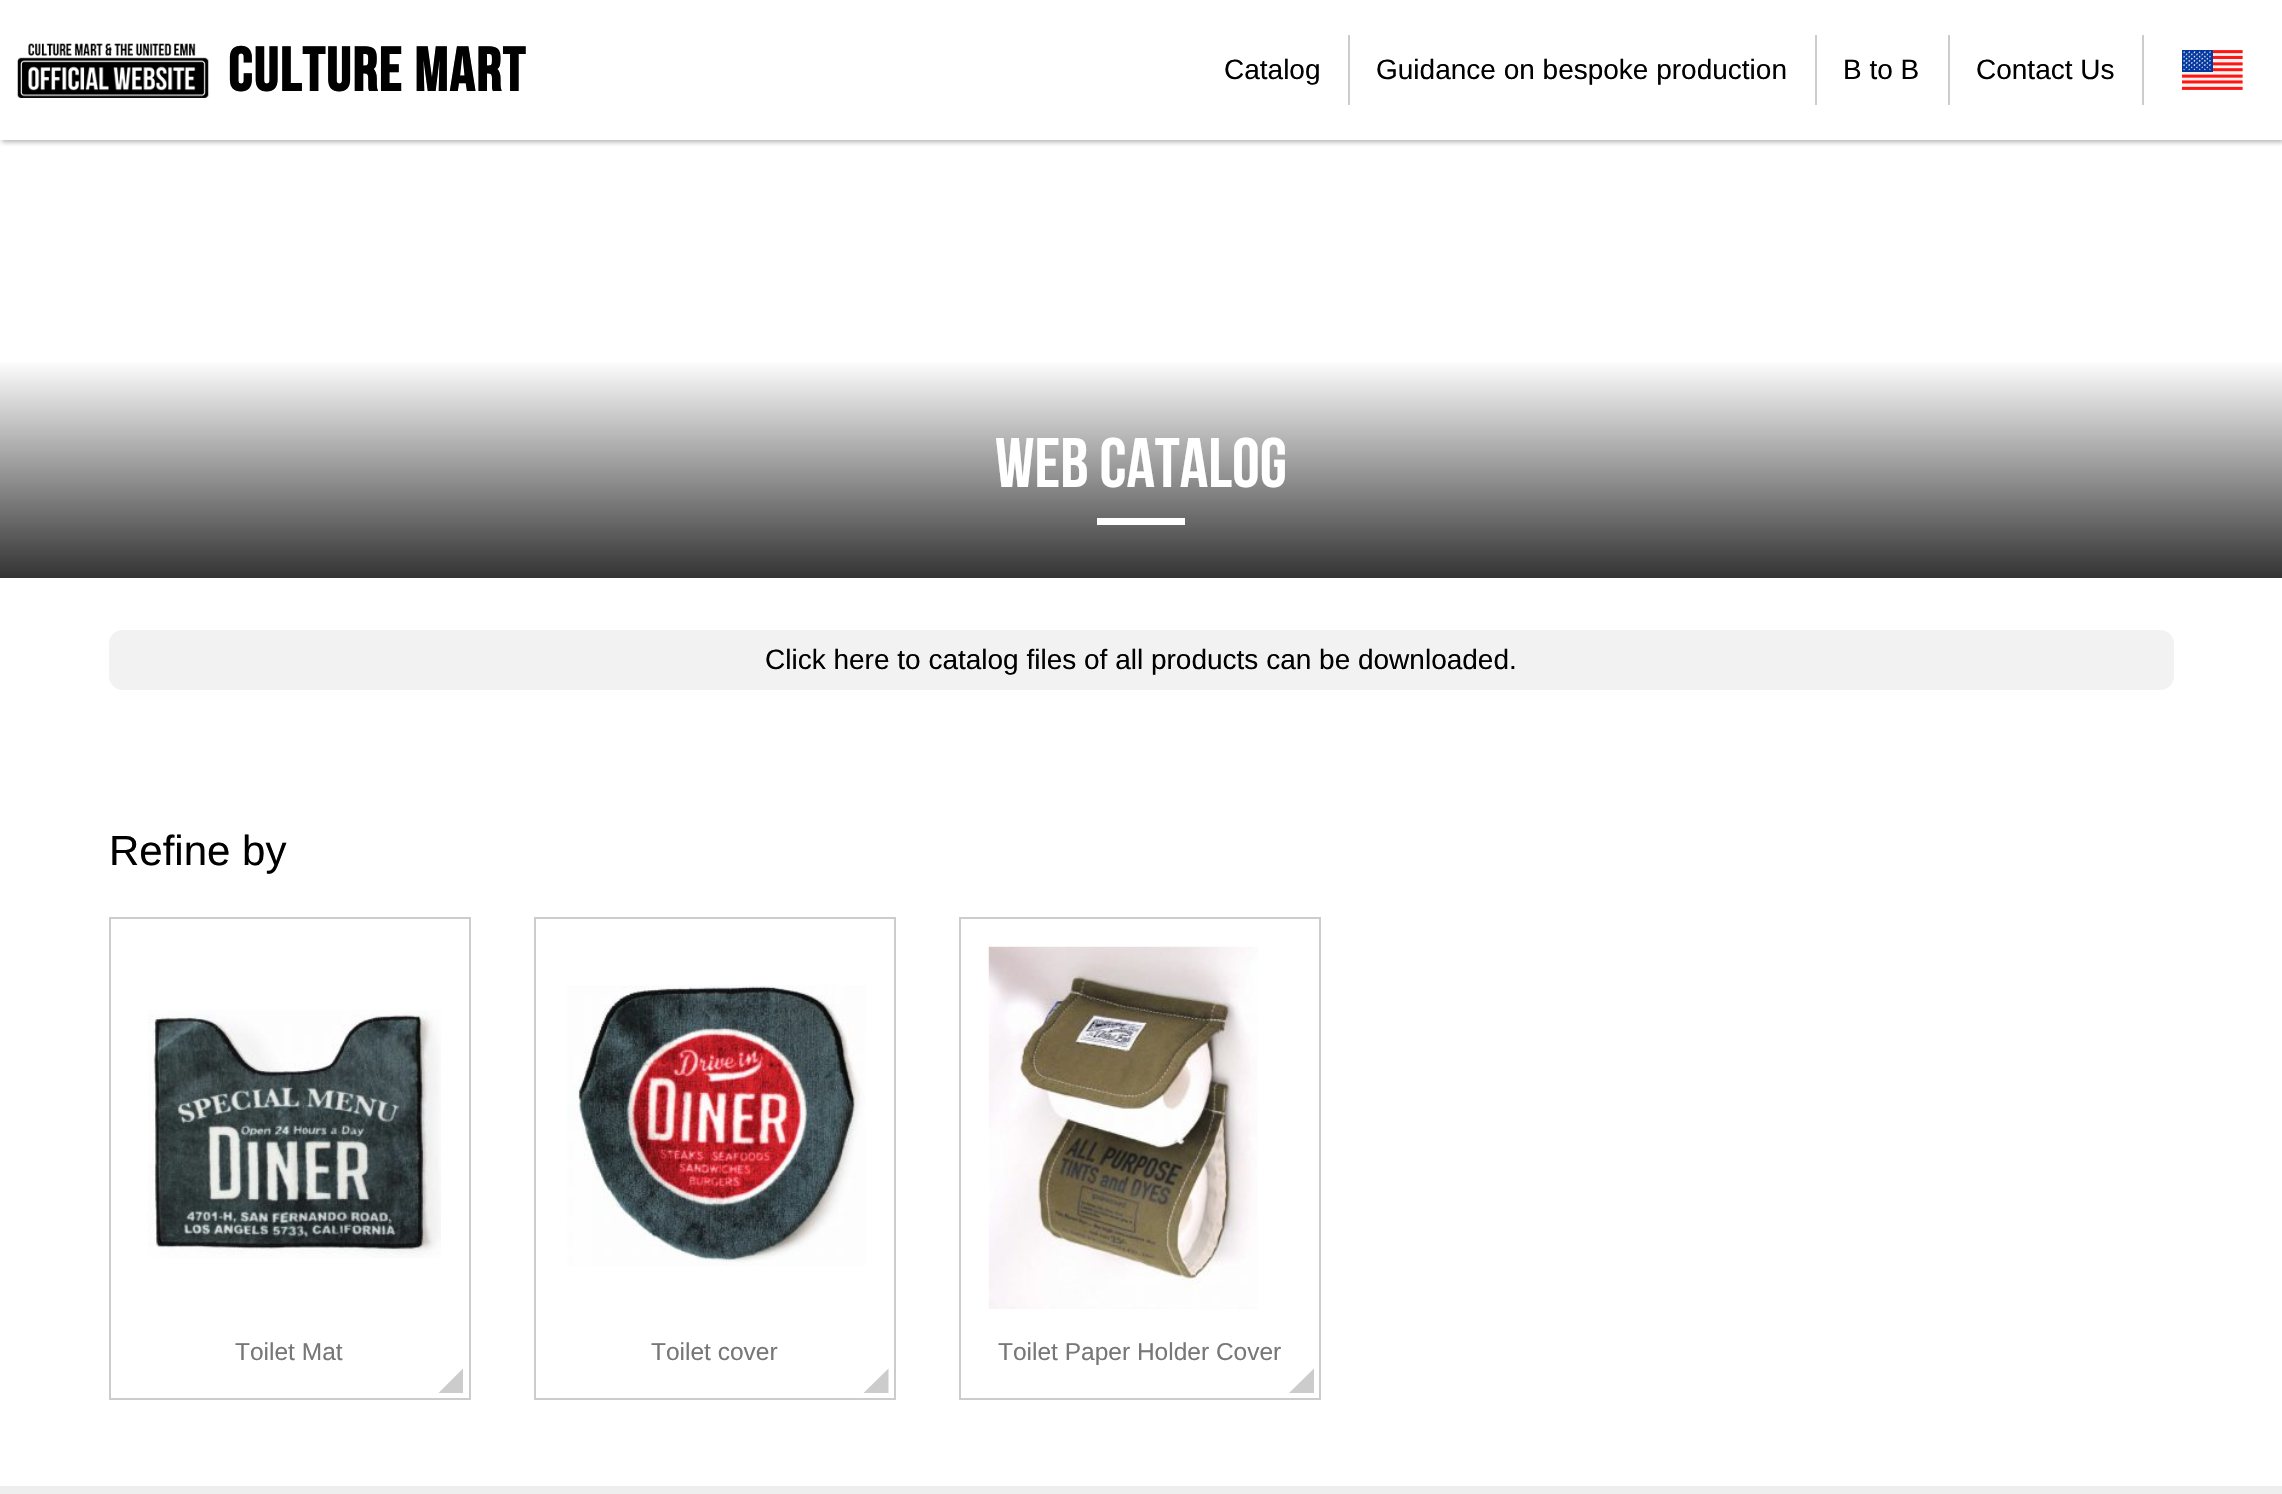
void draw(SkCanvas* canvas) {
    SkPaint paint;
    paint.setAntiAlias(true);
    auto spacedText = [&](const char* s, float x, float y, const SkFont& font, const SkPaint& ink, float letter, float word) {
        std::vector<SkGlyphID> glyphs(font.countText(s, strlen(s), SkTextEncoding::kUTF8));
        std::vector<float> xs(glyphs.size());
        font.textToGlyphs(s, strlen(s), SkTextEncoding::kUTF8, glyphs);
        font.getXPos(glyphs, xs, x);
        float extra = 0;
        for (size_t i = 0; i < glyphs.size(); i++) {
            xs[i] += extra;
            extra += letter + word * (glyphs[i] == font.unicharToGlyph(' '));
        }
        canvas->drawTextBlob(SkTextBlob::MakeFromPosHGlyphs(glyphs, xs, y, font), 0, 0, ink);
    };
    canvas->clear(0xFFFFFFFF);
    canvas->save();
    canvas->clipRect(SkRect::MakeXYWH(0, 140, 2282, 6));
    paint.setColor(0x4D000000);
    paint.setMaskFilter(SkMaskFilter::MakeBlur(kNormal_SkBlurStyle, 2.5f));
    canvas->drawRect(SkRect::MakeXYWH(2, 2, 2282, 140), paint);
    paint.setMaskFilter(nullptr);
    canvas->restore();
    canvas->drawImageRect(SkImages::DeferredFromEncodedData(SkData::MakeFromFileName("img1.png")), SkRect::MakeXYWH(17, 43, 192, 55), SkSamplingOptions());
    SkFont font1(fontMgr->matchFamilyStyle("Bebas Neue", SkFontStyle::Bold()), 61.5f);
    font1.setSubpixel(true);
    paint.setColor(0xFF000000);
    spacedText("CULTURE MART", 228, 91, font1, paint, 1.75f, 0);
    SkFont font2(fontMgr->matchFamilyStyle("Liberation Sans", SkFontStyle::Normal()), 28);
    font2.setSubpixel(true);
    canvas->drawString("Catalog", 1224, 79, font2, paint);
    paint.setColor(0xFFCCCCCC);
    canvas->drawRect(SkRect::MakeXYWH(1348, 35, 2, 70), paint);
    paint.setColor(0xFF000000);
    canvas->drawString("Guidance on bespoke production", 1376, 79, font2, paint);
    paint.setColor(0xFFCCCCCC);
    canvas->drawRect(SkRect::MakeXYWH(1815, 35, 2, 70), paint);
    paint.setColor(0xFF000000);
    canvas->drawString("B to B", 1843, 79, font2, paint);
    paint.setColor(0xFFCCCCCC);
    canvas->drawRect(SkRect::MakeXYWH(1948, 35, 2, 70), paint);
    paint.setColor(0xFF000000);
    canvas->drawString("Contact Us", 1976, 79, font2, paint);
    paint.setColor(0xFFCCCCCC);
    canvas->drawRect(SkRect::MakeXYWH(2142, 35, 2, 70), paint);
    canvas->drawImageRect(SkImages::DeferredFromEncodedData(SkData::MakeFromFileName("img2.png")), SkRect::MakeXYWH(2182, 50, 61, 40), SkSamplingOptions());
    {
        const SkColor colors[] = {0xFFFFFFFF, 0xFF333333};
        const float stops[] = {0, 1};
        const SkPoint ends[] = {{1141, 359}, {1141, 578}};
        paint.setShader(SkGradientShader::MakeLinear(ends, colors, stops, 2, SkTileMode::kClamp));
        paint.setAlpha(255);
    }
    canvas->drawRect(SkRect::MakeXYWH(0, 362, 2282, 216), paint);
    SkFont font3(fontMgr->matchFamilyStyle("Bebas Neue", SkFontStyle::Normal()), 70);
    font3.setSubpixel(true);
    paint.setShader(nullptr);
    paint.setColor(0xFFFFFFFF);
    canvas->drawString("WEB CATALOG", 995, 487, font3, paint);
    canvas->drawRect(SkRect::MakeXYWH(1097, 518, 88, 7), paint);
    paint.setColor(0xFFF2F2F2);
    canvas->drawRoundRect(SkRect::MakeXYWH(109, 630, 2065, 60), 14, 14, paint);
    paint.setColor(0xFF000000);
    canvas->drawString("Click here to catalog files of all products can be downloaded.", 765, 669, font2, paint);
    SkFont font4(fontMgr->matchFamilyStyle("Liberation Sans", SkFontStyle::Normal()), 42);
    font4.setSubpixel(true);
    canvas->drawString("Refine by", 109, 865, font4, paint);
    paint.setStyle(SkPaint::kStroke_Style);
    paint.setStrokeWidth(2);
    paint.setColor(0xFFCCCCCC);
    canvas->drawRect(SkRect::MakeXYWH(110, 918, 360, 481), paint);
    canvas->drawImageRect(SkImages::DeferredFromEncodedData(SkData::MakeFromFileName("img3.png")), SkRect::MakeXYWH(148, 1010, 293, 248), SkSamplingOptions());
    SkFont font5(fontMgr->matchFamilyStyle("Liberation Sans", SkFontStyle::Normal()), 24.5f);
    font5.setSubpixel(true);
    paint.setStyle(SkPaint::kFill_Style);
    paint.setColor(0xFF777777);
    canvas->drawString("Toilet Mat", 235, 1360, font5, paint);
    paint.setColor(0xFFCCCCCC);
    canvas->drawPath(SkPathBuilder().moveTo(438.5f, 1393).lineTo(463, 1368.5f).lineTo(463, 1393).close().detach(), paint);
    paint.setStyle(SkPaint::kStroke_Style);
    canvas->drawRect(SkRect::MakeXYWH(535, 918, 360, 481), paint);
    canvas->drawImageRect(SkImages::DeferredFromEncodedData(SkData::MakeFromFileName("img4.png")), SkRect::MakeXYWH(567, 985, 299, 281), SkSamplingOptions());
    paint.setStyle(SkPaint::kFill_Style);
    paint.setColor(0xFF777777);
    canvas->drawString("Toilet cover", 651, 1360, font5, paint);
    paint.setColor(0xFFCCCCCC);
    canvas->drawPath(SkPathBuilder().moveTo(863.5f, 1393).lineTo(888.5f, 1368.5f).lineTo(888.5f, 1393).close().detach(), paint);
    paint.setStyle(SkPaint::kStroke_Style);
    canvas->drawRect(SkRect::MakeXYWH(960, 918, 360, 481), paint);
    canvas->drawImageRect(SkImages::DeferredFromEncodedData(SkData::MakeFromFileName("img5.png")), SkRect::MakeXYWH(988, 946, 270, 363), SkSamplingOptions());
    paint.setStyle(SkPaint::kFill_Style);
    paint.setColor(0xFF777777);
    canvas->drawString("Toilet Paper Holder Cover", 998, 1360, font5, paint);
    paint.setColor(0xFFCCCCCC);
    canvas->drawPath(SkPathBuilder().moveTo(1289, 1393).lineTo(1314, 1368.5f).lineTo(1314, 1393).close().detach(), paint);
    paint.setColor(0xFFEEEEEE);
    canvas->drawRect(SkRect::MakeXYWH(0, 1486, 2282, 8), paint);
}
